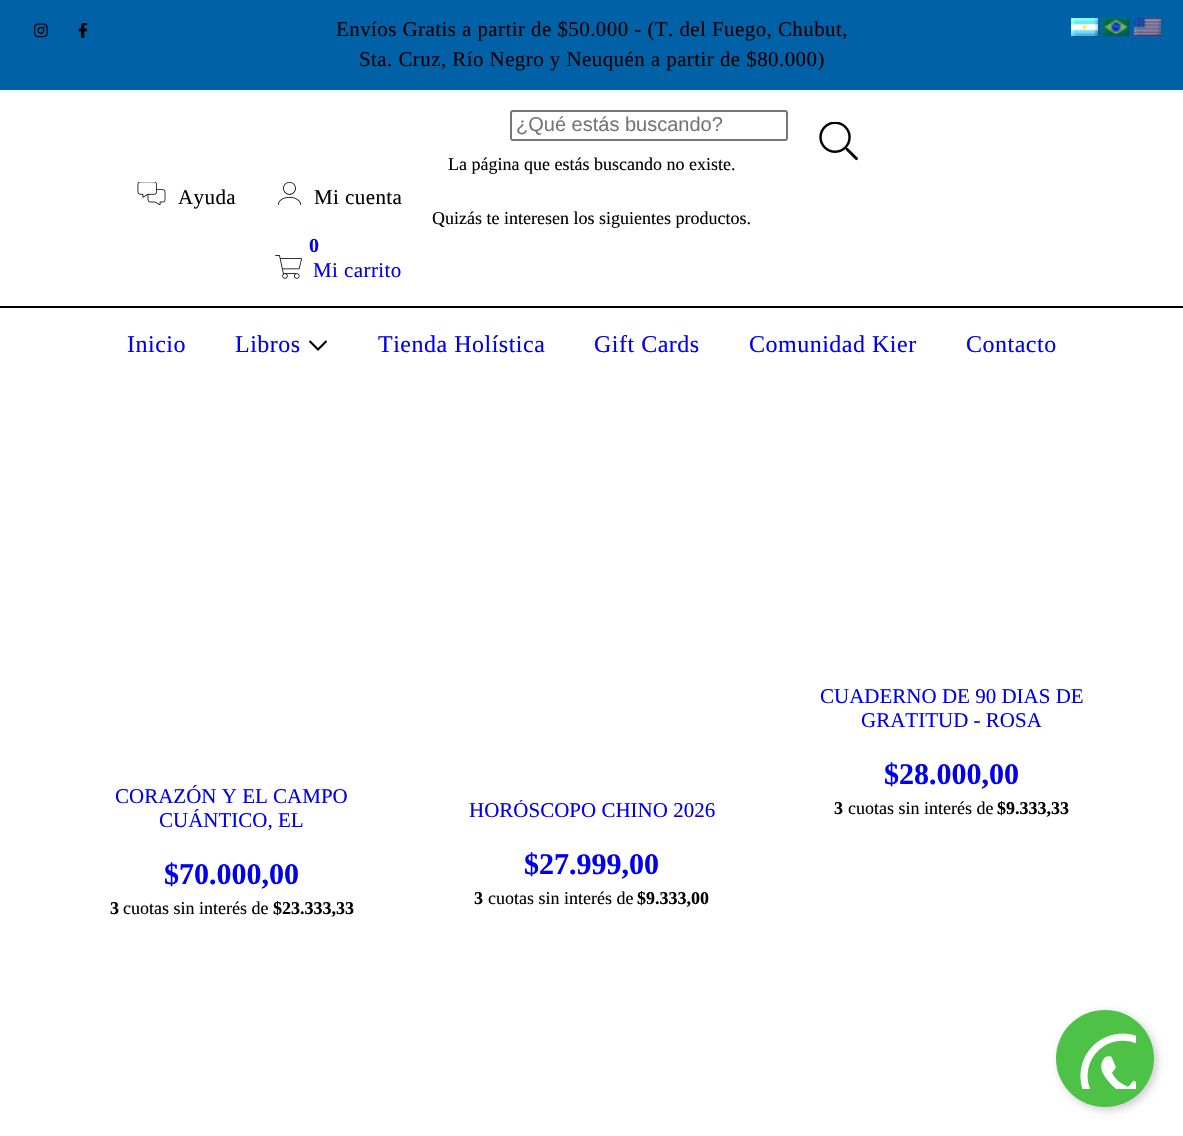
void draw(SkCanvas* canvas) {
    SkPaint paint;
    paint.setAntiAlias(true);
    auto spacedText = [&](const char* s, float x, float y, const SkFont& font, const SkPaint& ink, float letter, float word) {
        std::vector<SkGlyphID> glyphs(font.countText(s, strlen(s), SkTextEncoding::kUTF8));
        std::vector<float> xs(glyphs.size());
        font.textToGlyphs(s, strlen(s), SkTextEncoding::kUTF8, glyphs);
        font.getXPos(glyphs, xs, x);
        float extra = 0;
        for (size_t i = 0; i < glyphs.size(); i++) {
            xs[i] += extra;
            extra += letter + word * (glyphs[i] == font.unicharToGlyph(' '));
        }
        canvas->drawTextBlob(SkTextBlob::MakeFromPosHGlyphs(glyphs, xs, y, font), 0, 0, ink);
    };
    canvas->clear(0xFFFFFFFF);
    paint.setColor(0xFF0061A7);
    canvas->drawRect(SkRect::MakeXYWH(0, 0, 1183, 90), paint);
    canvas->drawImageRect(SkImages::DeferredFromEncodedData(SkData::MakeFromFileName("img1.png")), SkRect::MakeXYWH(34, 23, 14, 15), SkSamplingOptions());
    canvas->drawImageRect(SkImages::DeferredFromEncodedData(SkData::MakeFromFileName("img2.png")), SkRect::MakeXYWH(78, 23, 10, 15), SkSamplingOptions());
    SkFont font1(fontMgr->matchFamilyStyle("Liberation Serif", SkFontStyle::Normal()), 21);
    font1.setSubpixel(true);
    paint.setColor(0xFF000000);
    spacedText("Envíos Gratis a partir de $50.000 - (T. del Fuego, Chubut,", 336, 36, font1, paint, 0.42f, 0);
    spacedText("Sta. Cruz, Río Negro y Neuquén a partir de $80.000)", 359, 66, font1, paint, 0.42f, 0);
    canvas->drawImageRect(SkImages::DeferredFromEncodedData(SkData::MakeFromFileName("img3.png")), SkRect::MakeXYWH(1071, 18, 27, 18), SkSamplingOptions());
    canvas->drawImageRect(SkImages::DeferredFromEncodedData(SkData::MakeFromFileName("img4.png")), SkRect::MakeXYWH(1102, 18, 28, 18), SkSamplingOptions());
    canvas->drawImageRect(SkImages::DeferredFromEncodedData(SkData::MakeFromFileName("img5.png")), SkRect::MakeXYWH(1134, 18, 27, 18), SkSamplingOptions());
    paint.setStyle(SkPaint::kStroke_Style);
    paint.setStrokeWidth(2);
    paint.setColor(0xFF767676);
    canvas->drawRoundRect(SkRect::MakeXYWH(511, 111, 276, 29), 2, 2, paint);
    SkFont font2(fontMgr->matchFamilyStyle("Liberation Sans", SkFontStyle::Normal()), 20);
    font2.setSubpixel(true);
    paint.setStyle(SkPaint::kFill_Style);
    paint.setColor(0xFF757575);
    canvas->drawString("¿Qué estás buscando?", 516, 131, font2, paint);
    canvas->drawImageRect(SkImages::DeferredFromEncodedData(SkData::MakeFromFileName("img6.png")), SkRect::MakeXYWH(819, 122, 39, 39), SkSamplingOptions());
    canvas->drawImageRect(SkImages::DeferredFromEncodedData(SkData::MakeFromFileName("img7.png")), SkRect::MakeXYWH(137, 182, 29, 23), SkSamplingOptions());
    paint.setColor(0xFF000000);
    spacedText("Ayuda", 178, 204, font1, paint, 0.42f, 0);
    canvas->drawImageRect(SkImages::DeferredFromEncodedData(SkData::MakeFromFileName("img8.png")), SkRect::MakeXYWH(277, 182, 25, 23), SkSamplingOptions());
    spacedText("Mi cuenta", 314, 204, font1, paint, 0.42f, 0);
    SkFont font3(fontMgr->matchFamilyStyle("Liberation Serif", SkFontStyle::Bold()), 20);
    font3.setSubpixel(true);
    paint.setColor(0xFF0000EE);
    canvas->drawString("0", 309, 252, font3, paint);
    canvas->drawImageRect(SkImages::DeferredFromEncodedData(SkData::MakeFromFileName("img9.png")), SkRect::MakeXYWH(275, 255, 27, 24), SkSamplingOptions());
    spacedText("Mi carrito", 313, 277, font1, paint, 0.42f, 0);
    paint.setColor(0xFF000000);
    canvas->drawRect(SkRect::MakeXYWH(0, 306, 1183, 2), paint);
    SkFont font4(fontMgr->matchFamilyStyle("Liberation Serif", SkFontStyle::Normal()), 24);
    font4.setSubpixel(true);
    paint.setColor(0xFF0000EE);
    spacedText("Inicio", 127, 352, font4, paint, 0.5f, 0);
    spacedText("Libros", 235, 352, font4, paint, 0.5f, 0);
    canvas->drawImageRect(SkImages::DeferredFromEncodedData(SkData::MakeFromFileName("img10.png")), SkRect::MakeXYWH(309, 340, 18, 11), SkSamplingOptions());
    spacedText("Tienda Holística", 378, 352, font4, paint, 0.5f, 0);
    spacedText("Gift Cards", 594, 352, font4, paint, 0.5f, 0);
    spacedText("Comunidad Kier", 749, 352, font4, paint, 0.5f, 0);
    spacedText("Contacto", 966, 352, font4, paint, 0.5f, 0);
    SkFont font5(fontMgr->matchFamilyStyle("Liberation Serif", SkFontStyle::Normal()), 18);
    font5.setSubpixel(true);
    paint.setColor(0xFF000000);
    canvas->drawString("La página que estás buscando no existe.", 448, 170, font5, paint);
    canvas->drawString("Quizás te interesen los siguientes productos.", 432, 224, font5, paint);
    paint.setColor(0xFF0000EE);
    canvas->drawString("CUADERNO DE 90 DIAS DE", 820, 703, font1, paint);
    canvas->drawString("GRATITUD - ROSA", 861, 727, font1, paint);
    SkFont font6(fontMgr->matchFamilyStyle("Liberation Serif", SkFontStyle::Bold()), 30);
    font6.setSubpixel(true);
    canvas->drawString("$28.000,00", 884, 784, font6, paint);
    SkFont font7(fontMgr->matchFamilyStyle("Liberation Serif", SkFontStyle::Bold()), 18);
    font7.setSubpixel(true);
    paint.setColor(0xFF000000);
    canvas->drawString("3", 834, 814, font7, paint);
    canvas->drawString("cuotas sin interés de", 848, 814, font5, paint);
    canvas->drawString("$9.333,33", 997, 814, font7, paint);
    paint.setColor(0xFF0000EE);
    canvas->drawString("CORAZÓN Y EL CAMPO", 115, 803, font1, paint);
    canvas->drawString("CUÁNTICO, EL", 159, 827, font1, paint);
    canvas->drawString("$70.000,00", 164, 884, font6, paint);
    paint.setColor(0xFF000000);
    canvas->drawString("3", 110, 914, font7, paint);
    canvas->drawString("cuotas sin interés de", 123, 914, font5, paint);
    canvas->drawString("$23.333,33", 273, 914, font7, paint);
    canvas->save();
    canvas->clipRect(SkRect::MakeXYWH(441, 800, 303, 24));
    paint.setColor(0xFF0000EE);
    canvas->drawString("HORÓSCOPO CHINO 2026", 469, 817, font1, paint);
    canvas->restore();
    canvas->drawString("$27.999,00", 524, 874, font6, paint);
    paint.setColor(0xFF000000);
    canvas->drawString("3", 474, 904, font7, paint);
    canvas->drawString("cuotas sin interés de", 488, 904, font5, paint);
    canvas->drawString("$9.333,00", 637, 904, font7, paint);
    paint.setColor(0x33000000);
    paint.setMaskFilter(SkMaskFilter::MakeBlur(kNormal_SkBlurStyle, 4.5f));
    canvas->drawRoundRect(SkRect::MakeXYWH(1059, 1013, 98, 97), 48.5f, 48.5f, paint);
    paint.setMaskFilter(nullptr);
    paint.setColor(0xFF4DC247);
    canvas->drawRoundRect(SkRect::MakeXYWH(1056, 1010, 98, 97), 48.5f, 48.5f, paint);
    canvas->drawImageRect(SkImages::DeferredFromEncodedData(SkData::MakeFromFileName("img11.png")), SkRect::MakeXYWH(1080, 1033, 56, 56), SkSamplingOptions());
}
